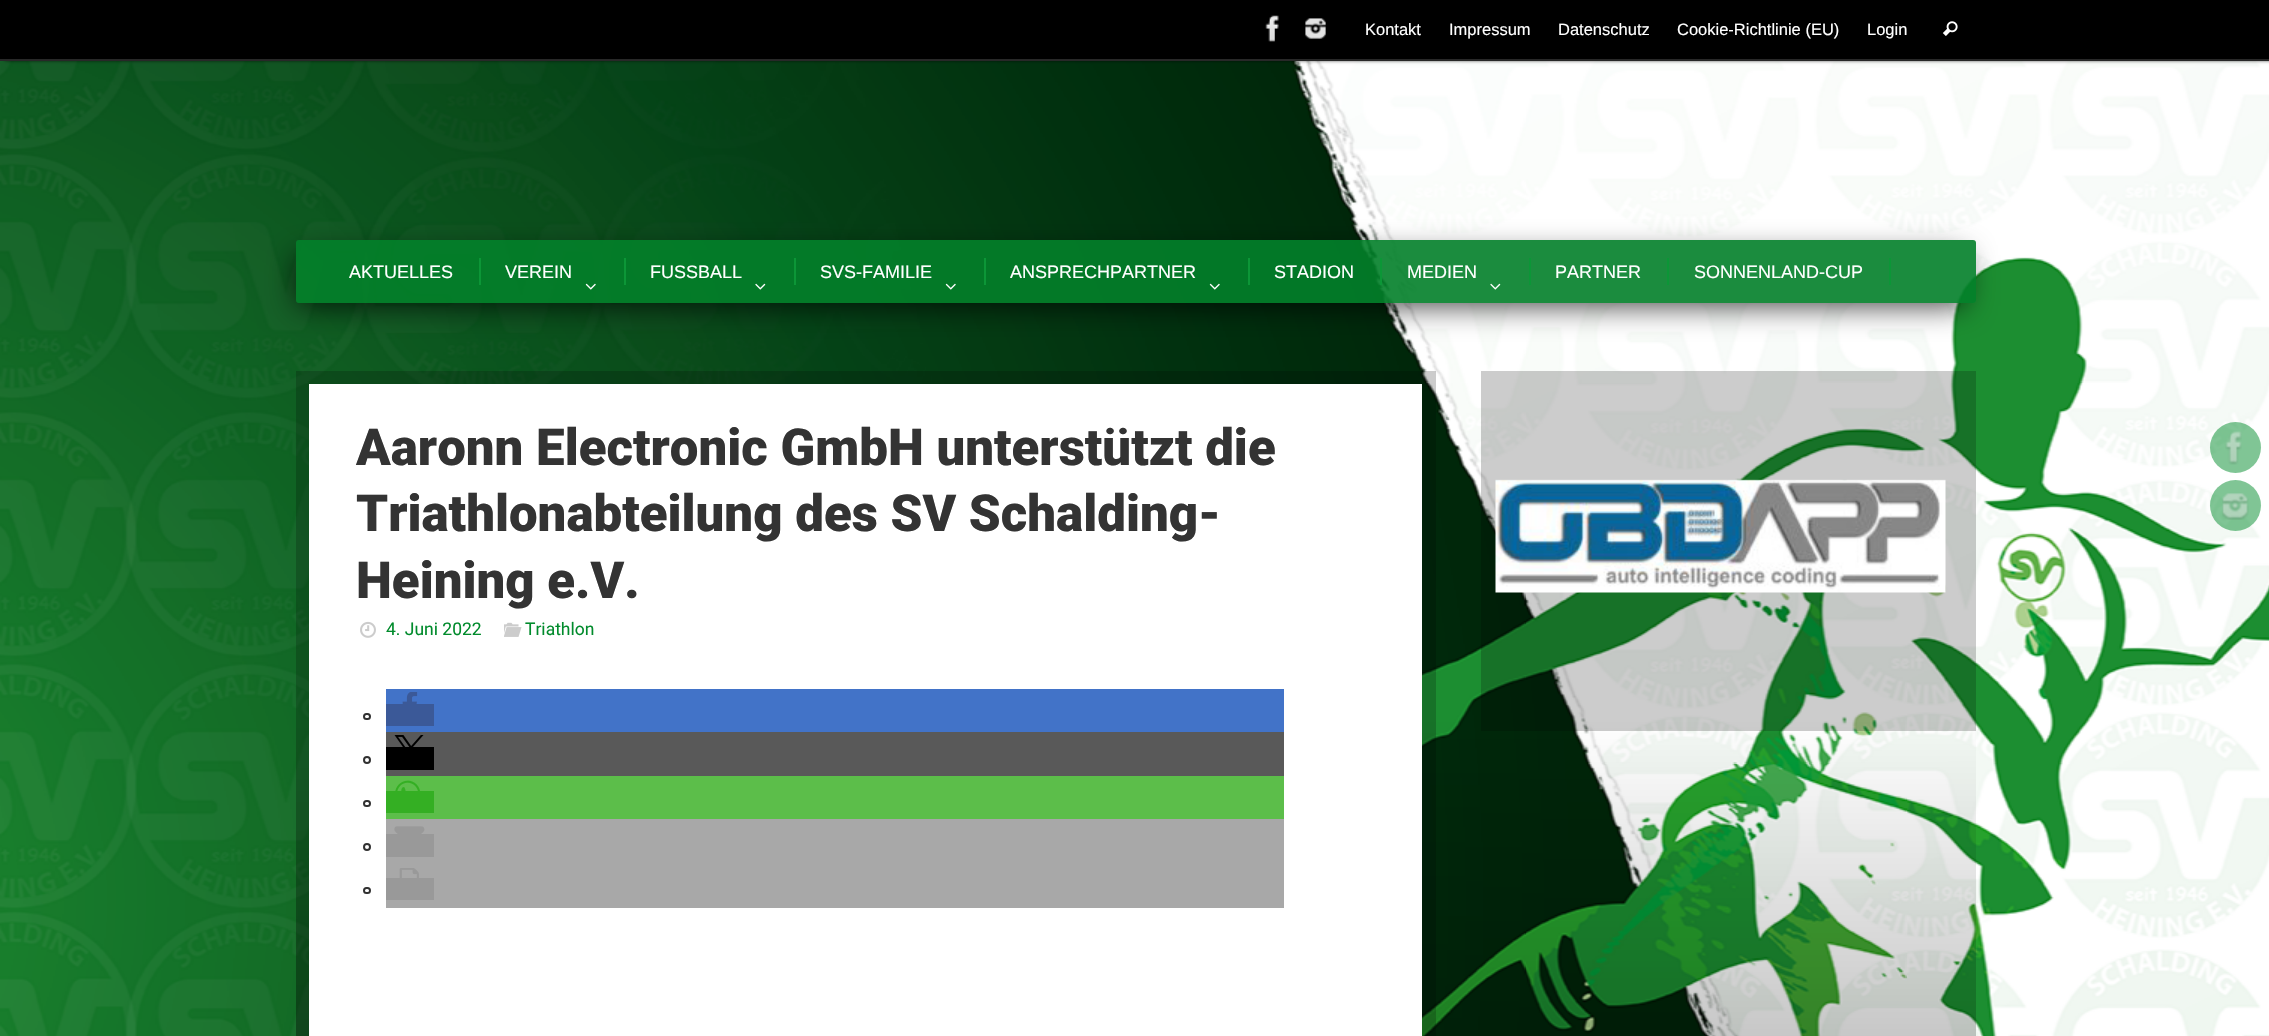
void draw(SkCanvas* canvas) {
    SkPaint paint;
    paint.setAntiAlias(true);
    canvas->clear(0xFFFFFFFF);
    canvas->drawImageRect(SkImages::DeferredFromEncodedData(SkData::MakeFromFileName("img1.png")), SkRect::MakeXYWH(0, 61, 2269, 975), SkSamplingOptions());
    paint.setColor(0xFF000000);
    paint.setMaskFilter(SkMaskFilter::MakeBlur(kNormal_SkBlurStyle, 2));
    canvas->drawRect(SkRect::MakeXYWH(5, 0, 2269, 60), paint);
    paint.setMaskFilter(nullptr);
    canvas->drawRect(SkRect::MakeXYWH(0, 0, 2269, 59), paint);
    paint.setColor(0xFF282828);
    canvas->drawRect(SkRect::MakeXYWH(0, 59, 2269, 2), paint);
    canvas->drawImageRect(SkImages::DeferredFromEncodedData(SkData::MakeFromFileName("img2.png")), SkRect::MakeXYWH(1265, 15, 14, 27), SkSamplingOptions());
    canvas->drawImageRect(SkImages::DeferredFromEncodedData(SkData::MakeFromFileName("img3.png")), SkRect::MakeXYWH(1305, 18, 21, 21), SkSamplingOptions());
    SkFont font1(fontMgr->matchFamilyStyle("Liberation Sans", SkFontStyle::Normal()), 16.5f);
    font1.setSubpixel(true);
    paint.setColor(0xFFFFFFFF);
    canvas->drawString("Kontakt", 1365, 35, font1, paint);
    canvas->drawString("Impressum", 1449, 35, font1, paint);
    canvas->drawString("Datenschutz", 1558, 35, font1, paint);
    canvas->drawString("Cookie-Richtlinie (EU)", 1677, 35, font1, paint);
    canvas->drawString("Login", 1867, 35, font1, paint);
    canvas->drawImageRect(SkImages::DeferredFromEncodedData(SkData::MakeFromFileName("img4.png")), SkRect::MakeXYWH(1942, 21, 16, 15), SkSamplingOptions());
    canvas->save();
    canvas->clipPath(SkPathBuilder(SkPathFillType::kEvenOdd).moveTo(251, 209).lineTo(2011, 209).lineTo(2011, 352).lineTo(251, 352).close().moveTo(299, 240).lineTo(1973, 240).cubicTo(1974.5f, 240, 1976, 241.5f, 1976, 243).lineTo(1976, 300).cubicTo(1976, 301.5f, 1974.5f, 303, 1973, 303).lineTo(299, 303).cubicTo(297.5f, 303, 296, 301.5f, 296, 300).lineTo(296, 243).cubicTo(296, 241.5f, 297.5f, 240, 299, 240).close().detach(), true);
    paint.setColor(0xBF000000);
    paint.setMaskFilter(SkMaskFilter::MakeBlur(kNormal_SkBlurStyle, 15));
    canvas->drawRect(SkRect::MakeXYWH(297, 255, 1668, 51), paint);
    paint.setMaskFilter(nullptr);
    canvas->restore();
    paint.setColor(0xE6027F29);
    canvas->drawRoundRect(SkRect::MakeXYWH(296, 240, 1680, 63), 3, 3, paint);
    paint.setColor(0xFF0C9637);
    canvas->drawRect(SkRect::MakeXYWH(479, 258, 2, 27), paint);
    SkFont font2(fontMgr->matchFamilyStyle("Liberation Sans", SkFontStyle::Normal()), 18);
    font2.setSubpixel(true);
    paint.setColor(0xFFFFFFFF);
    canvas->drawString("AKTUELLES", 349, 278, font2, paint);
    paint.setColor(0xFF0C9637);
    canvas->drawRect(SkRect::MakeXYWH(624, 258, 2, 27), paint);
    paint.setColor(0xFFFFFFFF);
    canvas->drawString("VEREIN", 505, 278, font2, paint);
    canvas->drawImageRect(SkImages::DeferredFromEncodedData(SkData::MakeFromFileName("img5.png")), SkRect::MakeXYWH(585, 283, 11, 7), SkSamplingOptions());
    paint.setColor(0xFF0C9637);
    canvas->drawRect(SkRect::MakeXYWH(794, 258, 2, 27), paint);
    paint.setColor(0xFFFFFFFF);
    canvas->drawString("FUSSBALL", 650, 278, font2, paint);
    canvas->drawImageRect(SkImages::DeferredFromEncodedData(SkData::MakeFromFileName("img6.png")), SkRect::MakeXYWH(755, 283, 11, 7), SkSamplingOptions());
    paint.setColor(0xFF0C9637);
    canvas->drawRect(SkRect::MakeXYWH(984, 258, 2, 27), paint);
    paint.setColor(0xFFFFFFFF);
    canvas->drawString("SVS-FAMILIE", 820, 278, font2, paint);
    canvas->drawImageRect(SkImages::DeferredFromEncodedData(SkData::MakeFromFileName("img7.png")), SkRect::MakeXYWH(945, 283, 11, 7), SkSamplingOptions());
    paint.setColor(0xFF0C9637);
    canvas->drawRect(SkRect::MakeXYWH(1248, 258, 2, 27), paint);
    paint.setColor(0xFFFFFFFF);
    canvas->drawString("ANSPRECHPARTNER", 1010, 278, font2, paint);
    canvas->drawImageRect(SkImages::DeferredFromEncodedData(SkData::MakeFromFileName("img8.png")), SkRect::MakeXYWH(1209, 283, 11, 7), SkSamplingOptions());
    paint.setColor(0xFF0C9637);
    canvas->drawRect(SkRect::MakeXYWH(1380, 258, 2, 27), paint);
    paint.setColor(0xFFFFFFFF);
    canvas->drawString("STADION", 1274, 278, font2, paint);
    paint.setColor(0xFF0C9637);
    canvas->drawRect(SkRect::MakeXYWH(1529, 258, 2, 27), paint);
    paint.setColor(0xFFFFFFFF);
    canvas->drawString("MEDIEN", 1407, 278, font2, paint);
    canvas->drawImageRect(SkImages::DeferredFromEncodedData(SkData::MakeFromFileName("img9.png")), SkRect::MakeXYWH(1490, 283, 11, 7), SkSamplingOptions());
    paint.setColor(0xFF0C9637);
    canvas->drawRect(SkRect::MakeXYWH(1667, 258, 2, 27), paint);
    paint.setColor(0xFFFFFFFF);
    canvas->drawString("PARTNER", 1555, 278, font2, paint);
    paint.setColor(0xFF0C9637);
    canvas->drawRect(SkRect::MakeXYWH(1889, 258, 2, 27), paint);
    paint.setColor(0xFFFFFFFF);
    canvas->drawString("SONNENLAND-CUP", 1694, 278, font2, paint);
    paint.setColor(0x33000000);
    canvas->drawRect(SkRect::MakeXYWH(296, 371, 1140, 665), paint);
    paint.setColor(0xFFFFFFFF);
    canvas->drawRect(SkRect::MakeXYWH(309, 384, 1113, 652), paint);
    SkFont font3(fontMgr->matchFamilyStyle("Roboto", SkFontStyle(900, SkFontStyle::kNormal_Width, SkFontStyle::kUpright_Slant)), 51);
    font3.setSubpixel(true);
    paint.setColor(0xFF333333);
    canvas->drawString("Aaronn Electronic GmbH unterstützt die", 356, 465, font3, paint);
    canvas->drawString("Triathlonabteilung des SV Schalding-", 356, 531, font3, paint);
    canvas->drawString("Heining e.V.", 356, 598, font3, paint);
    canvas->drawImageRect(SkImages::DeferredFromEncodedData(SkData::MakeFromFileName("img10.png")), SkRect::MakeXYWH(360, 621, 16, 17), SkSamplingOptions());
    SkFont font4(fontMgr->matchFamilyStyle("Roboto", SkFontStyle::Normal()), 17.5f);
    font4.setSubpixel(true);
    paint.setColor(0xFF018B2C);
    canvas->drawString("4. Juni 2022", 386, 635, font4, paint);
    canvas->drawImageRect(SkImages::DeferredFromEncodedData(SkData::MakeFromFileName("img11.png")), SkRect::MakeXYWH(504, 622, 18, 15), SkSamplingOptions());
    canvas->drawString("Triathlon", 525, 635, font4, paint);
    paint.setColor(0xFF4273C8);
    canvas->drawRect(SkRect::MakeXYWH(386, 689, 898, 43), paint);
    canvas->drawImageRect(SkImages::DeferredFromEncodedData(SkData::MakeFromFileName("img12.png")), SkRect::MakeXYWH(402, 692, 16, 12), SkSamplingOptions());
    paint.setStyle(SkPaint::kStroke_Style);
    paint.setStrokeWidth(2);
    paint.setColor(0xFF313131);
    canvas->drawRoundRect(SkRect::MakeXYWH(364, 714, 6, 5), 2.5f, 2.5f, paint);
    paint.setStyle(SkPaint::kFill_Style);
    paint.setColor(0xFF3B5998);
    canvas->drawRect(SkRect::MakeXYWH(386, 704, 48, 22), paint);
    paint.setColor(0xFF595959);
    canvas->drawRect(SkRect::MakeXYWH(386, 732, 898, 44), paint);
    canvas->drawImageRect(SkImages::DeferredFromEncodedData(SkData::MakeFromFileName("img13.png")), SkRect::MakeXYWH(394, 735, 30, 12), SkSamplingOptions());
    paint.setStyle(SkPaint::kStroke_Style);
    paint.setColor(0xFF313131);
    canvas->drawCircle(367, 760, 3, paint);
    paint.setStyle(SkPaint::kFill_Style);
    paint.setColor(0xFF000000);
    canvas->drawRect(SkRect::MakeXYWH(386, 747, 48, 23), paint);
    paint.setColor(0xFF5CBE4A);
    canvas->drawRect(SkRect::MakeXYWH(386, 776, 898, 43), paint);
    canvas->drawImageRect(SkImages::DeferredFromEncodedData(SkData::MakeFromFileName("img14.png")), SkRect::MakeXYWH(395, 780, 25, 11), SkSamplingOptions());
    paint.setStyle(SkPaint::kStroke_Style);
    paint.setColor(0xFF313131);
    canvas->drawRoundRect(SkRect::MakeXYWH(364, 801, 6, 5), 2.5f, 2.5f, paint);
    paint.setStyle(SkPaint::kFill_Style);
    paint.setColor(0xFF34AF23);
    canvas->drawRect(SkRect::MakeXYWH(386, 791, 48, 22), paint);
    paint.setColor(0xFFA8A8A8);
    canvas->drawRect(SkRect::MakeXYWH(386, 819, 898, 89), paint);
    canvas->drawImageRect(SkImages::DeferredFromEncodedData(SkData::MakeFromFileName("img15.png")), SkRect::MakeXYWH(394, 826, 31, 8), SkSamplingOptions());
    paint.setStyle(SkPaint::kStroke_Style);
    paint.setColor(0xFF313131);
    canvas->drawCircle(367, 847, 3, paint);
    paint.setStyle(SkPaint::kFill_Style);
    paint.setColor(0xFF999999);
    canvas->drawRect(SkRect::MakeXYWH(386, 834, 48, 23), paint);
    canvas->drawImageRect(SkImages::DeferredFromEncodedData(SkData::MakeFromFileName("img16.png")), SkRect::MakeXYWH(399, 868, 20, 10), SkSamplingOptions());
    paint.setStyle(SkPaint::kStroke_Style);
    paint.setColor(0xFF313131);
    canvas->drawRoundRect(SkRect::MakeXYWH(364, 888, 6, 5), 2.5f, 2.5f, paint);
    paint.setStyle(SkPaint::kFill_Style);
    paint.setColor(0xFF999999);
    canvas->drawRect(SkRect::MakeXYWH(386, 878, 48, 22), paint);
    paint.setColor(0x33000000);
    canvas->drawRect(SkRect::MakeXYWH(1481, 371, 495, 360), paint);
    canvas->drawImageRect(SkImages::DeferredFromEncodedData(SkData::MakeFromFileName("img17.png")), SkRect::MakeXYWH(1495, 479, 451, 114), SkSamplingOptions());
    paint.setColor(0x80018B2C);
    canvas->drawCircle(2235.5f, 447.5f, 25.5f, paint);
    canvas->drawImageRect(SkImages::DeferredFromEncodedData(SkData::MakeFromFileName("img18.png")), SkRect::MakeXYWH(2225, 431, 17, 34), SkSamplingOptions());
    canvas->drawCircle(2235.5f, 505.5f, 25.5f, paint);
    canvas->drawImageRect(SkImages::DeferredFromEncodedData(SkData::MakeFromFileName("img19.png")), SkRect::MakeXYWH(2222, 493, 27, 27), SkSamplingOptions());
}
